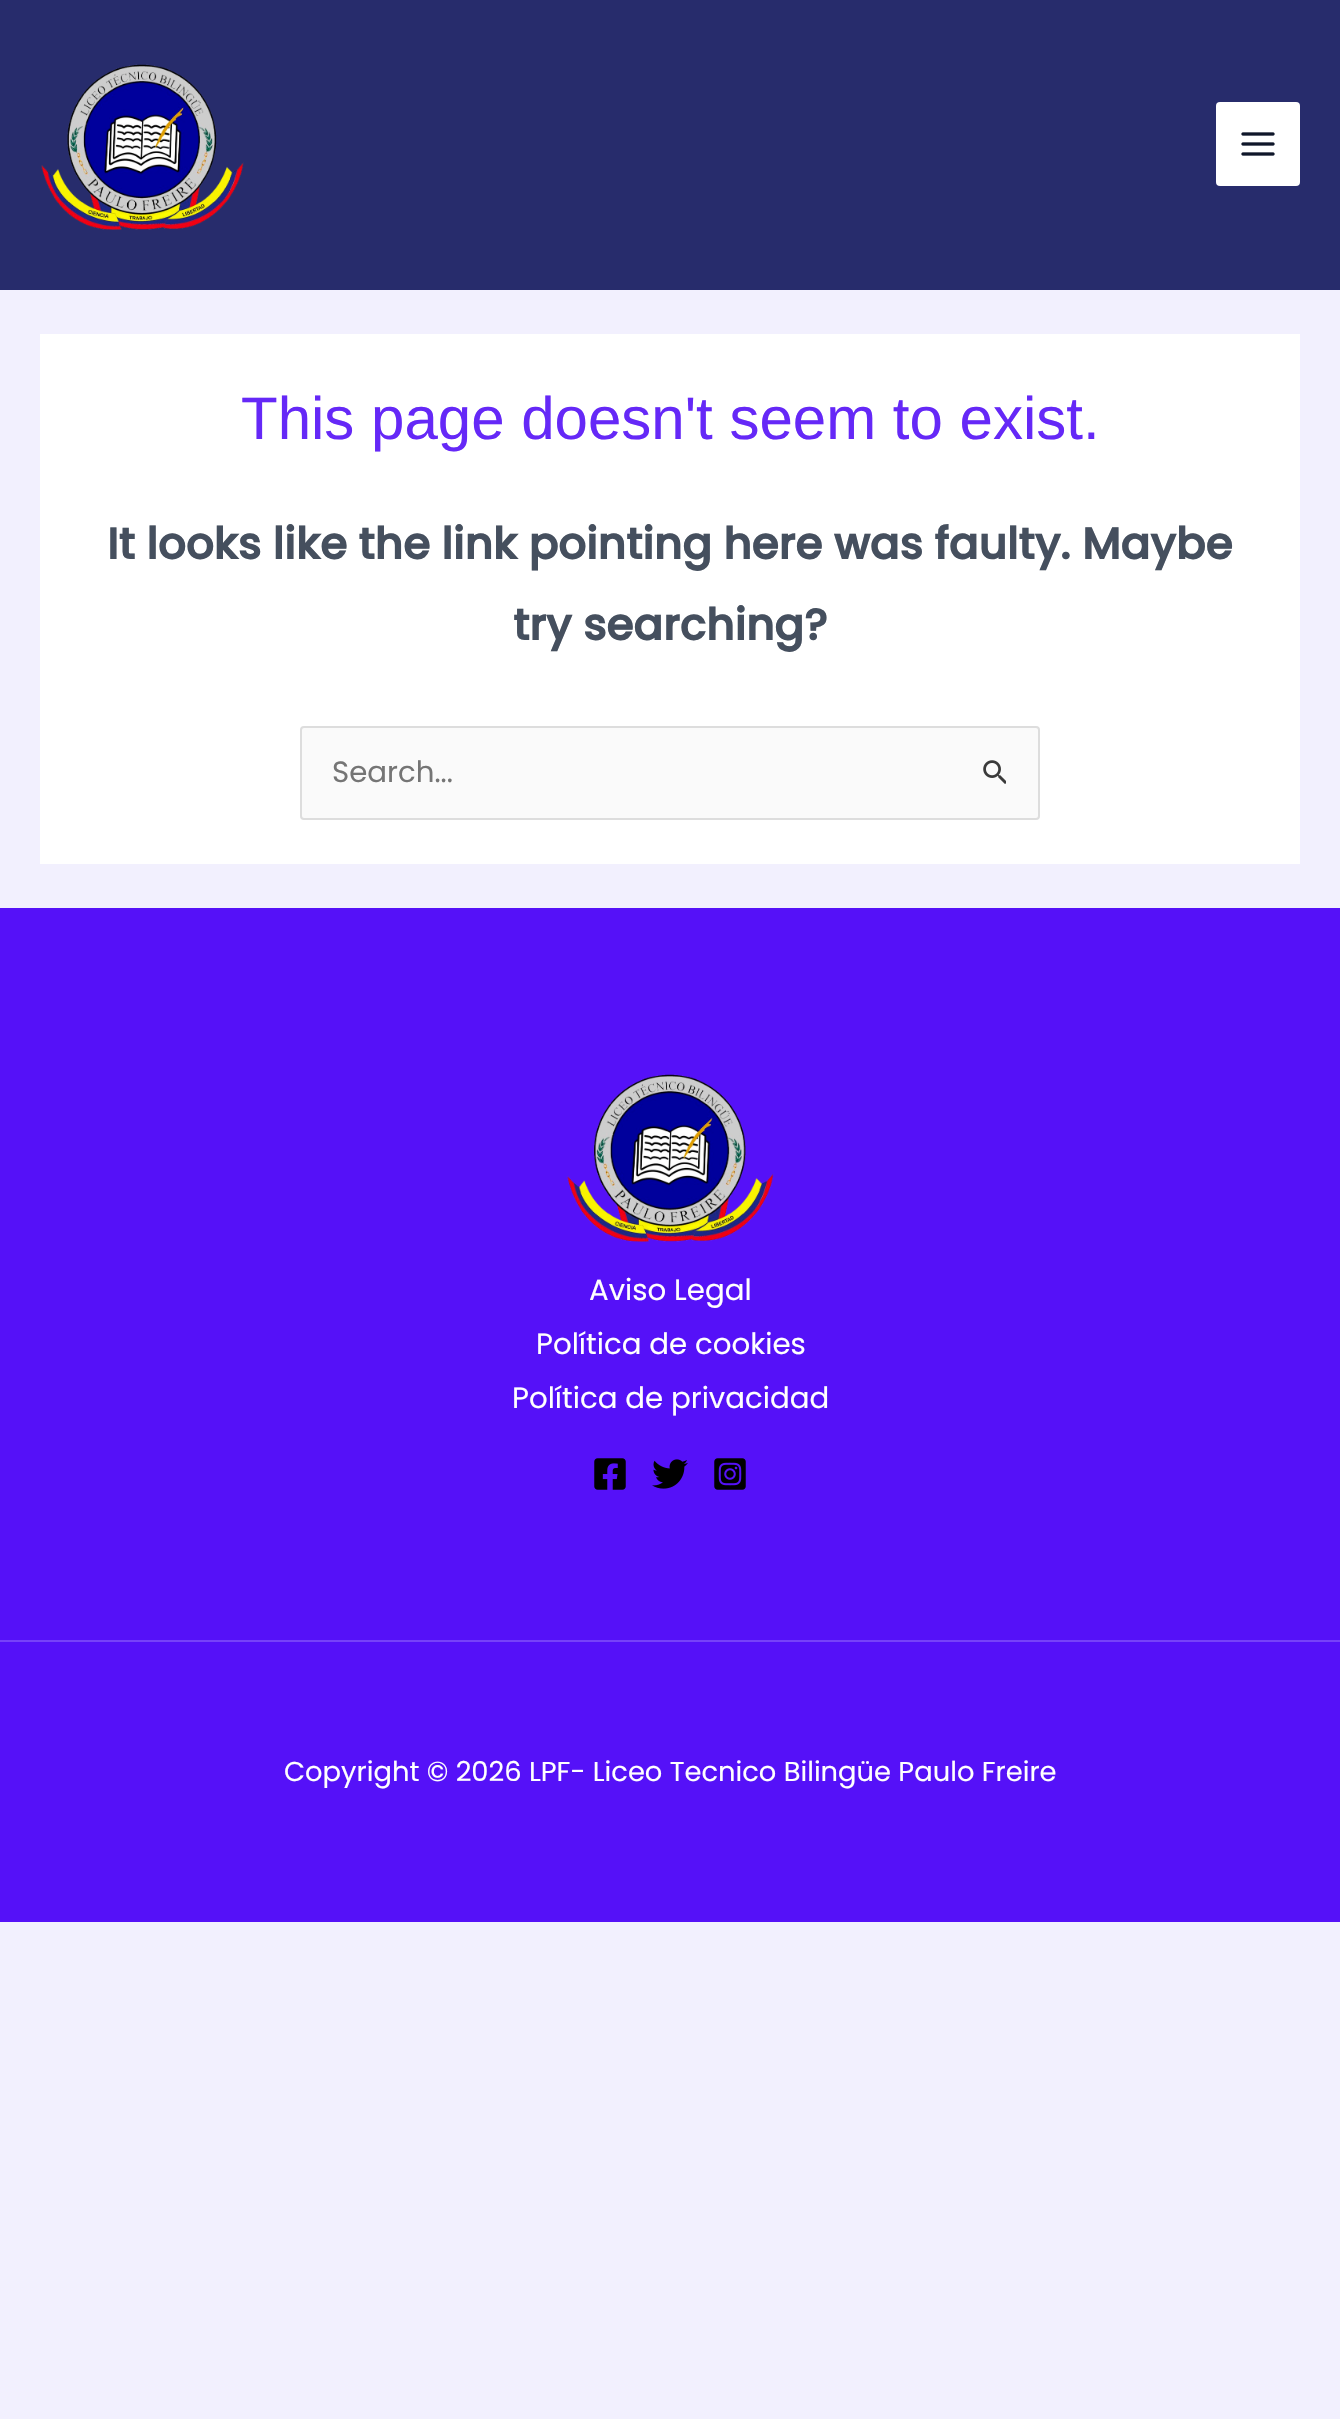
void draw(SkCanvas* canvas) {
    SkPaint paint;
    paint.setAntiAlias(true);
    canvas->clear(0xFFF2F0FE);
    paint.setColor(0xFF272C6C);
    canvas->drawRect(SkRect::MakeXYWH(0, 0, 1340, 290), paint);
    canvas->drawImageRect(SkImages::DeferredFromEncodedData(SkData::MakeFromFileName("img1.png")), SkRect::MakeXYWH(41, 64, 203, 166), SkSamplingOptions());
    paint.setColor(0xFFFFFFFF);
    canvas->drawRoundRect(SkRect::MakeXYWH(1216, 102, 84, 84), 4, 4, paint);
    canvas->drawImageRect(SkImages::DeferredFromEncodedData(SkData::MakeFromFileName("img2.png")), SkRect::MakeXYWH(1241, 132, 34, 24), SkSamplingOptions());
    canvas->drawRect(SkRect::MakeXYWH(40, 334, 1260, 530), paint);
    SkFont font1(fontMgr->matchFamilyStyle("Liberation Sans", SkFontStyle::Normal()), 60);
    font1.setSubpixel(true);
    paint.setColor(0xFF6528F7);
    canvas->drawString("This page doesn't seem to exist.", 241, 439, font1, paint);
    SkFont font2(fontMgr->matchFamilyStyle("Poppins", SkFontStyle::Bold()), 43.75f);
    font2.setSubpixel(true);
    paint.setColor(0xFF454F5E);
    canvas->drawString("It looks like the link pointing here was faulty. Maybe", 107, 559, font2, paint);
    canvas->drawString("try searching?", 513, 640, font2, paint);
    paint.setColor(0xFFFAFAFA);
    canvas->drawRoundRect(SkRect::MakeXYWH(301, 727, 738, 92), 3, 3, paint);
    paint.setStyle(SkPaint::kStroke_Style);
    paint.setStrokeWidth(2);
    paint.setColor(0xFFDDDDDD);
    canvas->drawRoundRect(SkRect::MakeXYWH(301, 727, 738, 92), 3, 3, paint);
    SkFont font3(fontMgr->matchFamilyStyle("Poppins", SkFontStyle::Normal()), 29.25f);
    font3.setSubpixel(true);
    paint.setStyle(SkPaint::kFill_Style);
    paint.setColor(0xFF757575);
    canvas->drawString("Search...", 332, 782, font3, paint);
    canvas->drawImageRect(SkImages::DeferredFromEncodedData(SkData::MakeFromFileName("img3.png")), SkRect::MakeXYWH(983, 760, 23, 24), SkSamplingOptions());
    paint.setColor(0xFF5511F8);
    canvas->drawRect(SkRect::MakeXYWH(0, 908, 1340, 1014), paint);
    canvas->drawImageRect(SkImages::DeferredFromEncodedData(SkData::MakeFromFileName("img4.png")), SkRect::MakeXYWH(567, 1074, 207, 168), SkSamplingOptions());
    paint.setColor(0xFFFFFFFF);
    canvas->drawString("Aviso Legal", 589, 1300, font3, paint);
    canvas->drawString("Política de cookies", 536, 1354, font3, paint);
    canvas->drawString("Política de privacidad", 512, 1408, font3, paint);
    canvas->drawImageRect(SkImages::DeferredFromEncodedData(SkData::MakeFromFileName("img5.png")), SkRect::MakeXYWH(594, 1458, 32, 32), SkSamplingOptions());
    canvas->drawImageRect(SkImages::DeferredFromEncodedData(SkData::MakeFromFileName("img6.png")), SkRect::MakeXYWH(652, 1459, 36, 30), SkSamplingOptions());
    canvas->drawImageRect(SkImages::DeferredFromEncodedData(SkData::MakeFromFileName("img7.png")), SkRect::MakeXYWH(714, 1458, 32, 32), SkSamplingOptions());
    paint.setColor(0xFF7741F9);
    canvas->drawRect(SkRect::MakeXYWH(0, 1640, 1340, 2), paint);
    SkFont font4(fontMgr->matchFamilyStyle("Poppins", SkFontStyle::Normal()), 27.35f);
    font4.setSubpixel(true);
    paint.setColor(0xFFFFFFFF);
    canvas->drawString("Copyright © 2026 LPF- Liceo Tecnico Bilingüe Paulo Freire", 284, 1781, font4, paint);
}
